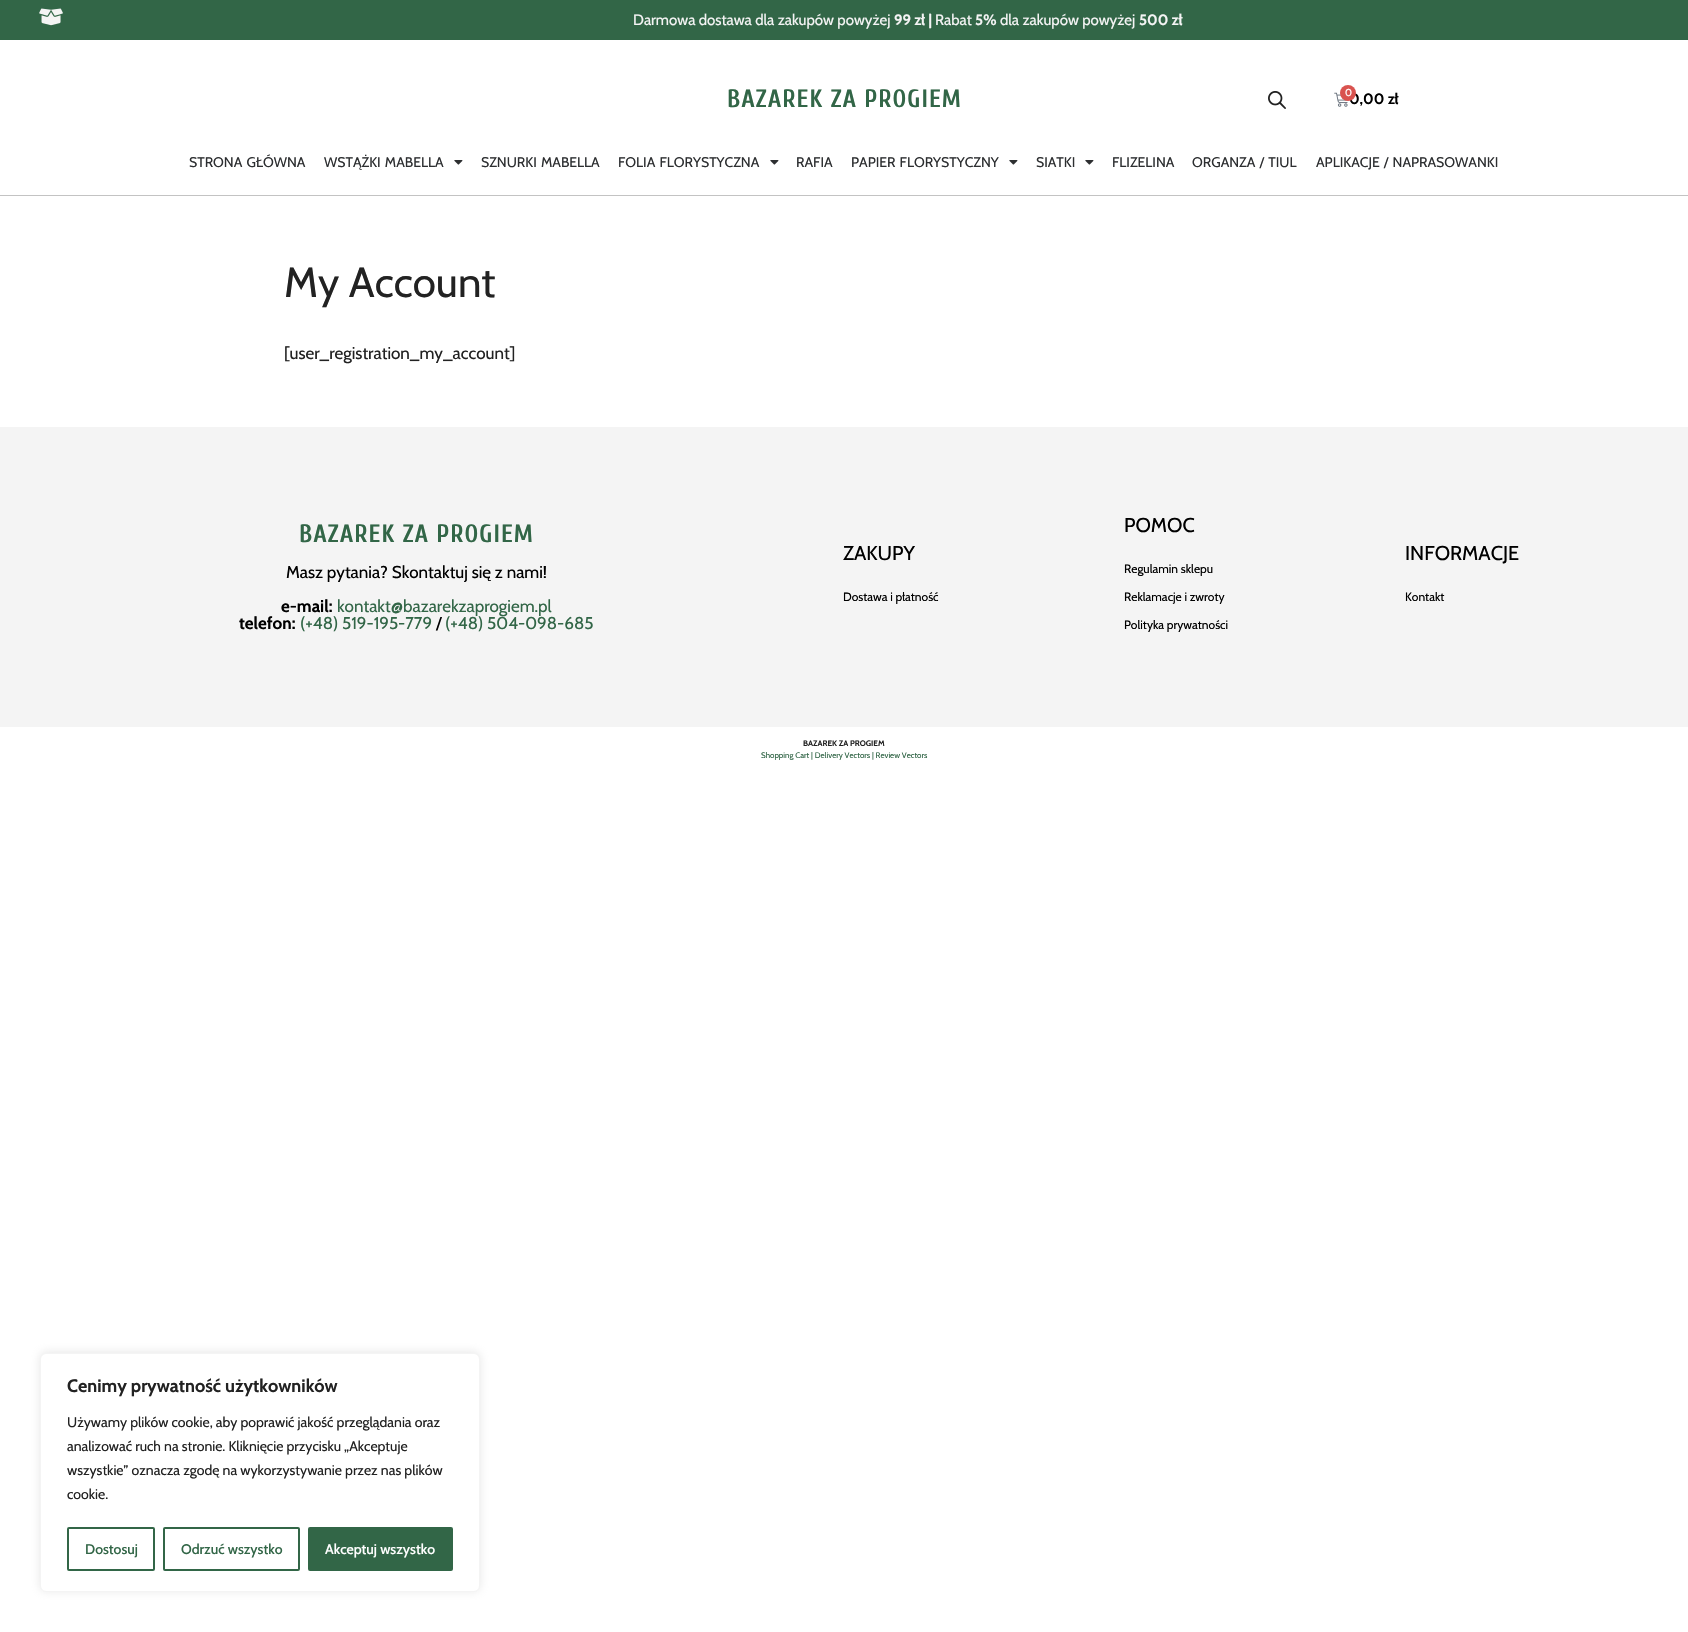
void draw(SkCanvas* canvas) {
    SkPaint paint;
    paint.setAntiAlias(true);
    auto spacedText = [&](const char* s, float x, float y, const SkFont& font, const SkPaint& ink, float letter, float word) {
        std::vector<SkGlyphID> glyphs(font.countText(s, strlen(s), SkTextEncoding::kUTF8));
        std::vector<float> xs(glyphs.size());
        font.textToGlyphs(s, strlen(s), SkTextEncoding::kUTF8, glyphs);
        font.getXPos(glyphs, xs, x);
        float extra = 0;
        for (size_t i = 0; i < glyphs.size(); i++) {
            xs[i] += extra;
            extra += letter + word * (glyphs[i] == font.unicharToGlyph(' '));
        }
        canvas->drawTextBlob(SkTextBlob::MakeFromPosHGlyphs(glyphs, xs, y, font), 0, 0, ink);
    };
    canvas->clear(0xFFFFFFFF);
    paint.setColor(0xFF326647);
    canvas->drawRect(SkRect::MakeXYWH(0, 0, 1688, 40), paint);
    canvas->drawImageRect(SkImages::DeferredFromEncodedData(SkData::MakeFromFileName("img1.png")), SkRect::MakeXYWH(39, 8, 24, 18), SkSamplingOptions());
    SkFont font1(fontMgr->matchFamilyStyle("Cabin", SkFontStyle::Normal()), 15);
    font1.setSubpixel(true);
    paint.setColor(0xFFF4F4F4);
    canvas->drawString("Darmowa dostawa dla zakupów powyżej", 633, 25, font1, paint);
    SkFont font2(fontMgr->matchFamilyStyle("Cabin", SkFontStyle::Bold()), 15);
    font2.setSubpixel(true);
    canvas->drawString("99 zł |", 894, 25, font2, paint);
    canvas->drawString("Rabat", 935, 25, font1, paint);
    canvas->drawString("5%", 975, 25, font2, paint);
    canvas->drawString("dla zakupów powyżej", 1000, 25, font1, paint);
    canvas->drawString("500 zł", 1139, 25, font2, paint);
    SkFont font3(fontMgr->matchFamilyStyle("Cuprum", SkFontStyle::Bold()), 25);
    font3.setSubpixel(true);
    paint.setColor(0xFF326647);
    spacedText("BAZAREK ZA PROGIEM", 727, 107, font3, paint, 1, 0);
    canvas->drawImageRect(SkImages::DeferredFromEncodedData(SkData::MakeFromFileName("img2.png")), SkRect::MakeXYWH(1268, 91, 18, 18), SkSamplingOptions());
    canvas->drawImageRect(SkImages::DeferredFromEncodedData(SkData::MakeFromFileName("img3.png")), SkRect::MakeXYWH(1334, 92, 14, 15), SkSamplingOptions());
    paint.setColor(0xFF000000);
    canvas->drawString("0,00 zł", 1349, 104, font2, paint);
    paint.setColor(0xFFD9534F);
    canvas->drawCircle(1348, 93, 8, paint);
    SkFont font4(fontMgr->matchFamilyStyle("Cabin", SkFontStyle::Normal()), 10);
    font4.setSubpixel(true);
    paint.setColor(0xFFFFFFFF);
    canvas->drawString("0", 1345, 96, font4, paint);
    paint.setColor(0xFFC3C3C3);
    canvas->drawRect(SkRect::MakeXYWH(0, 195, 1688, 1), paint);
    SkFont font5(fontMgr->matchFamilyStyle("Cabin", SkFontStyle::Normal()), 14);
    font5.setSubpixel(true);
    paint.setColor(0xFF2D2F31);
    spacedText("STRONA GŁÓWNA", 189, 167, font5, paint, 0, 1);
    spacedText("WSTĄŻKI MABELLA", 324, 167, font5, paint, 0, 1);
    canvas->drawImageRect(SkImages::DeferredFromEncodedData(SkData::MakeFromFileName("img4.png")), SkRect::MakeXYWH(454, 160, 9, 5), SkSamplingOptions());
    spacedText("SZNURKI MABELLA", 481, 167, font5, paint, 0, 1);
    spacedText("FOLIA FLORYSTYCZNA", 618, 167, font5, paint, 0, 1);
    canvas->drawImageRect(SkImages::DeferredFromEncodedData(SkData::MakeFromFileName("img4.png")), SkRect::MakeXYWH(770, 160, 9, 5), SkSamplingOptions());
    canvas->drawString("RAFIA", 796, 167, font5, paint);
    spacedText("PAPIER FLORYSTYCZNY", 851, 167, font5, paint, 0, 1);
    canvas->drawImageRect(SkImages::DeferredFromEncodedData(SkData::MakeFromFileName("img4.png")), SkRect::MakeXYWH(1009, 160, 9, 5), SkSamplingOptions());
    canvas->drawString("SIATKI", 1036, 167, font5, paint);
    canvas->drawImageRect(SkImages::DeferredFromEncodedData(SkData::MakeFromFileName("img4.png")), SkRect::MakeXYWH(1085, 160, 9, 5), SkSamplingOptions());
    canvas->drawString("FLIZELINA", 1112, 167, font5, paint);
    spacedText("ORGANZA / TIUL", 1192, 167, font5, paint, 0, 1);
    spacedText("APLIKACJE / NAPRASOWANKI", 1316, 167, font5, paint, 0, 1);
    SkFont font6(fontMgr->matchFamilyStyle("Cabin", SkFontStyle::Normal()), 42);
    font6.setSubpixel(true);
    paint.setColor(0xFF222222);
    canvas->drawString("My Account", 284, 297, font6, paint);
    SkFont font7(fontMgr->matchFamilyStyle("Cabin", SkFontStyle::Normal()), 17);
    font7.setSubpixel(true);
    canvas->drawString("[user_registration_my_account]", 284, 359, font7, paint);
    paint.setColor(0xFFF4F4F4);
    canvas->drawRect(SkRect::MakeXYWH(0, 427, 1688, 300), paint);
    paint.setColor(0xFF326647);
    spacedText("BAZAREK ZA PROGIEM", 299, 542, font3, paint, 1, 0);
    paint.setColor(0xFF000000);
    canvas->drawString("Masz pytania? Skontaktuj się z nami!", 286, 578, font7, paint);
    SkFont font8(fontMgr->matchFamilyStyle("Cabin", SkFontStyle::Bold()), 17);
    font8.setSubpixel(true);
    canvas->drawString("e-mail:", 281, 612, font8, paint);
    paint.setColor(0xFF326647);
    canvas->drawString("kontakt@bazarekzaprogiem.pl", 337, 612, font7, paint);
    paint.setColor(0xFF000000);
    canvas->drawString("telefon:", 239, 629, font8, paint);
    paint.setColor(0xFF326647);
    canvas->drawString("(+48) 519-195-779", 300, 629, font7, paint);
    paint.setColor(0xFF000000);
    canvas->drawString("/", 436, 629, font7, paint);
    paint.setColor(0xFF326647);
    canvas->drawString("(+48) 504-098-685", 445, 629, font7, paint);
    SkFont font9(fontMgr->matchFamilyStyle("Cabin", SkFontStyle::Normal()), 20);
    font9.setSubpixel(true);
    paint.setColor(0xFF000000);
    canvas->drawString("ZAKUPY", 843, 560, font9, paint);
    SkFont font10(fontMgr->matchFamilyStyle("Cabin", SkFontStyle::Normal()), 12);
    font10.setSubpixel(true);
    canvas->drawString("Dostawa i płatność", 843, 601, font10, paint);
    canvas->drawString("POMOC", 1124, 532, font9, paint);
    canvas->drawString("Regulamin sklepu", 1124, 573, font10, paint);
    canvas->drawString("Reklamacje i zwroty", 1124, 601, font10, paint);
    canvas->drawString("Polityka prywatności", 1124, 629, font10, paint);
    canvas->drawString("INFORMACJE", 1405, 560, font9, paint);
    canvas->drawString("Kontakt", 1405, 601, font10, paint);
    SkFont font11(fontMgr->matchFamilyStyle("Cabin", SkFontStyle::Bold()), 8);
    font11.setSubpixel(true);
    paint.setColor(0xFF222222);
    canvas->drawString("BAZAREK ZA PROGIEM", 803, 746, font11, paint);
    SkFont font12(fontMgr->matchFamilyStyle("Cabin", SkFontStyle::Normal()), 8);
    font12.setSubpixel(true);
    paint.setColor(0xFF326647);
    canvas->drawString("Shopping Cart | Delivery Vectors | Review Vectors", 761, 758, font12, paint);
    paint.setColor(0x4DACABAB);
    paint.setMaskFilter(SkMaskFilter::MakeBlur(kNormal_SkBlurStyle, 5));
    canvas->drawRoundRect(SkRect::MakeXYWH(40, 1352, 440, 239), 6, 6, paint);
    paint.setMaskFilter(nullptr);
    paint.setColor(0xFFFFFFFF);
    canvas->drawRoundRect(SkRect::MakeXYWH(40.5f, 1353.5f, 439, 238), 5.5f, 5.5f, paint);
    paint.setStyle(SkPaint::kStroke_Style);
    paint.setStrokeWidth(1);
    paint.setColor(0xFFF4F4F4);
    canvas->drawRoundRect(SkRect::MakeXYWH(40.5f, 1353.5f, 439, 238), 5.5f, 5.5f, paint);
    SkFont font13(fontMgr->matchFamilyStyle("Cabin", SkFontStyle::Bold()), 18);
    font13.setSubpixel(true);
    paint.setStyle(SkPaint::kFill_Style);
    paint.setColor(0xFF222222);
    canvas->drawString("Cenimy prywatność użytkowników", 67, 1392, font13, paint);
    canvas->drawString("Używamy plików cookie, aby poprawić jakość przeglądania oraz", 67, 1427, font5, paint);
    canvas->drawString("analizować ruch na stronie. Kliknięcie przycisku „Akceptuje", 67, 1451, font5, paint);
    canvas->drawString("wszystkie” oznacza zgodę na wykorzystywanie przez nas plików", 67, 1475, font5, paint);
    canvas->drawString("cookie.", 67, 1499, font5, paint);
    paint.setStyle(SkPaint::kStroke_Style);
    paint.setStrokeWidth(2);
    paint.setColor(0xFF326647);
    canvas->drawRoundRect(SkRect::MakeXYWH(68, 1528, 86, 42), 1, 1, paint);
    SkFont font14(fontMgr->matchFamilyStyle("Cabin", SkFontStyle(500, SkFontStyle::kNormal_Width, SkFontStyle::kUpright_Slant)), 14);
    font14.setSubpixel(true);
    paint.setStyle(SkPaint::kFill_Style);
    canvas->drawString("Dostosuj", 85, 1554, font14, paint);
    paint.setStyle(SkPaint::kStroke_Style);
    canvas->drawRoundRect(SkRect::MakeXYWH(164, 1528, 135, 42), 1, 1, paint);
    paint.setStyle(SkPaint::kFill_Style);
    canvas->drawString("Odrzuć wszystko", 181, 1554, font14, paint);
    canvas->drawRoundRect(SkRect::MakeXYWH(309, 1528, 143, 42), 1, 1, paint);
    paint.setStyle(SkPaint::kStroke_Style);
    canvas->drawRoundRect(SkRect::MakeXYWH(309, 1528, 143, 42), 1, 1, paint);
    paint.setStyle(SkPaint::kFill_Style);
    paint.setColor(0xFFFFFFFF);
    canvas->drawString("Akceptuj wszystko", 325, 1554, font14, paint);
}
